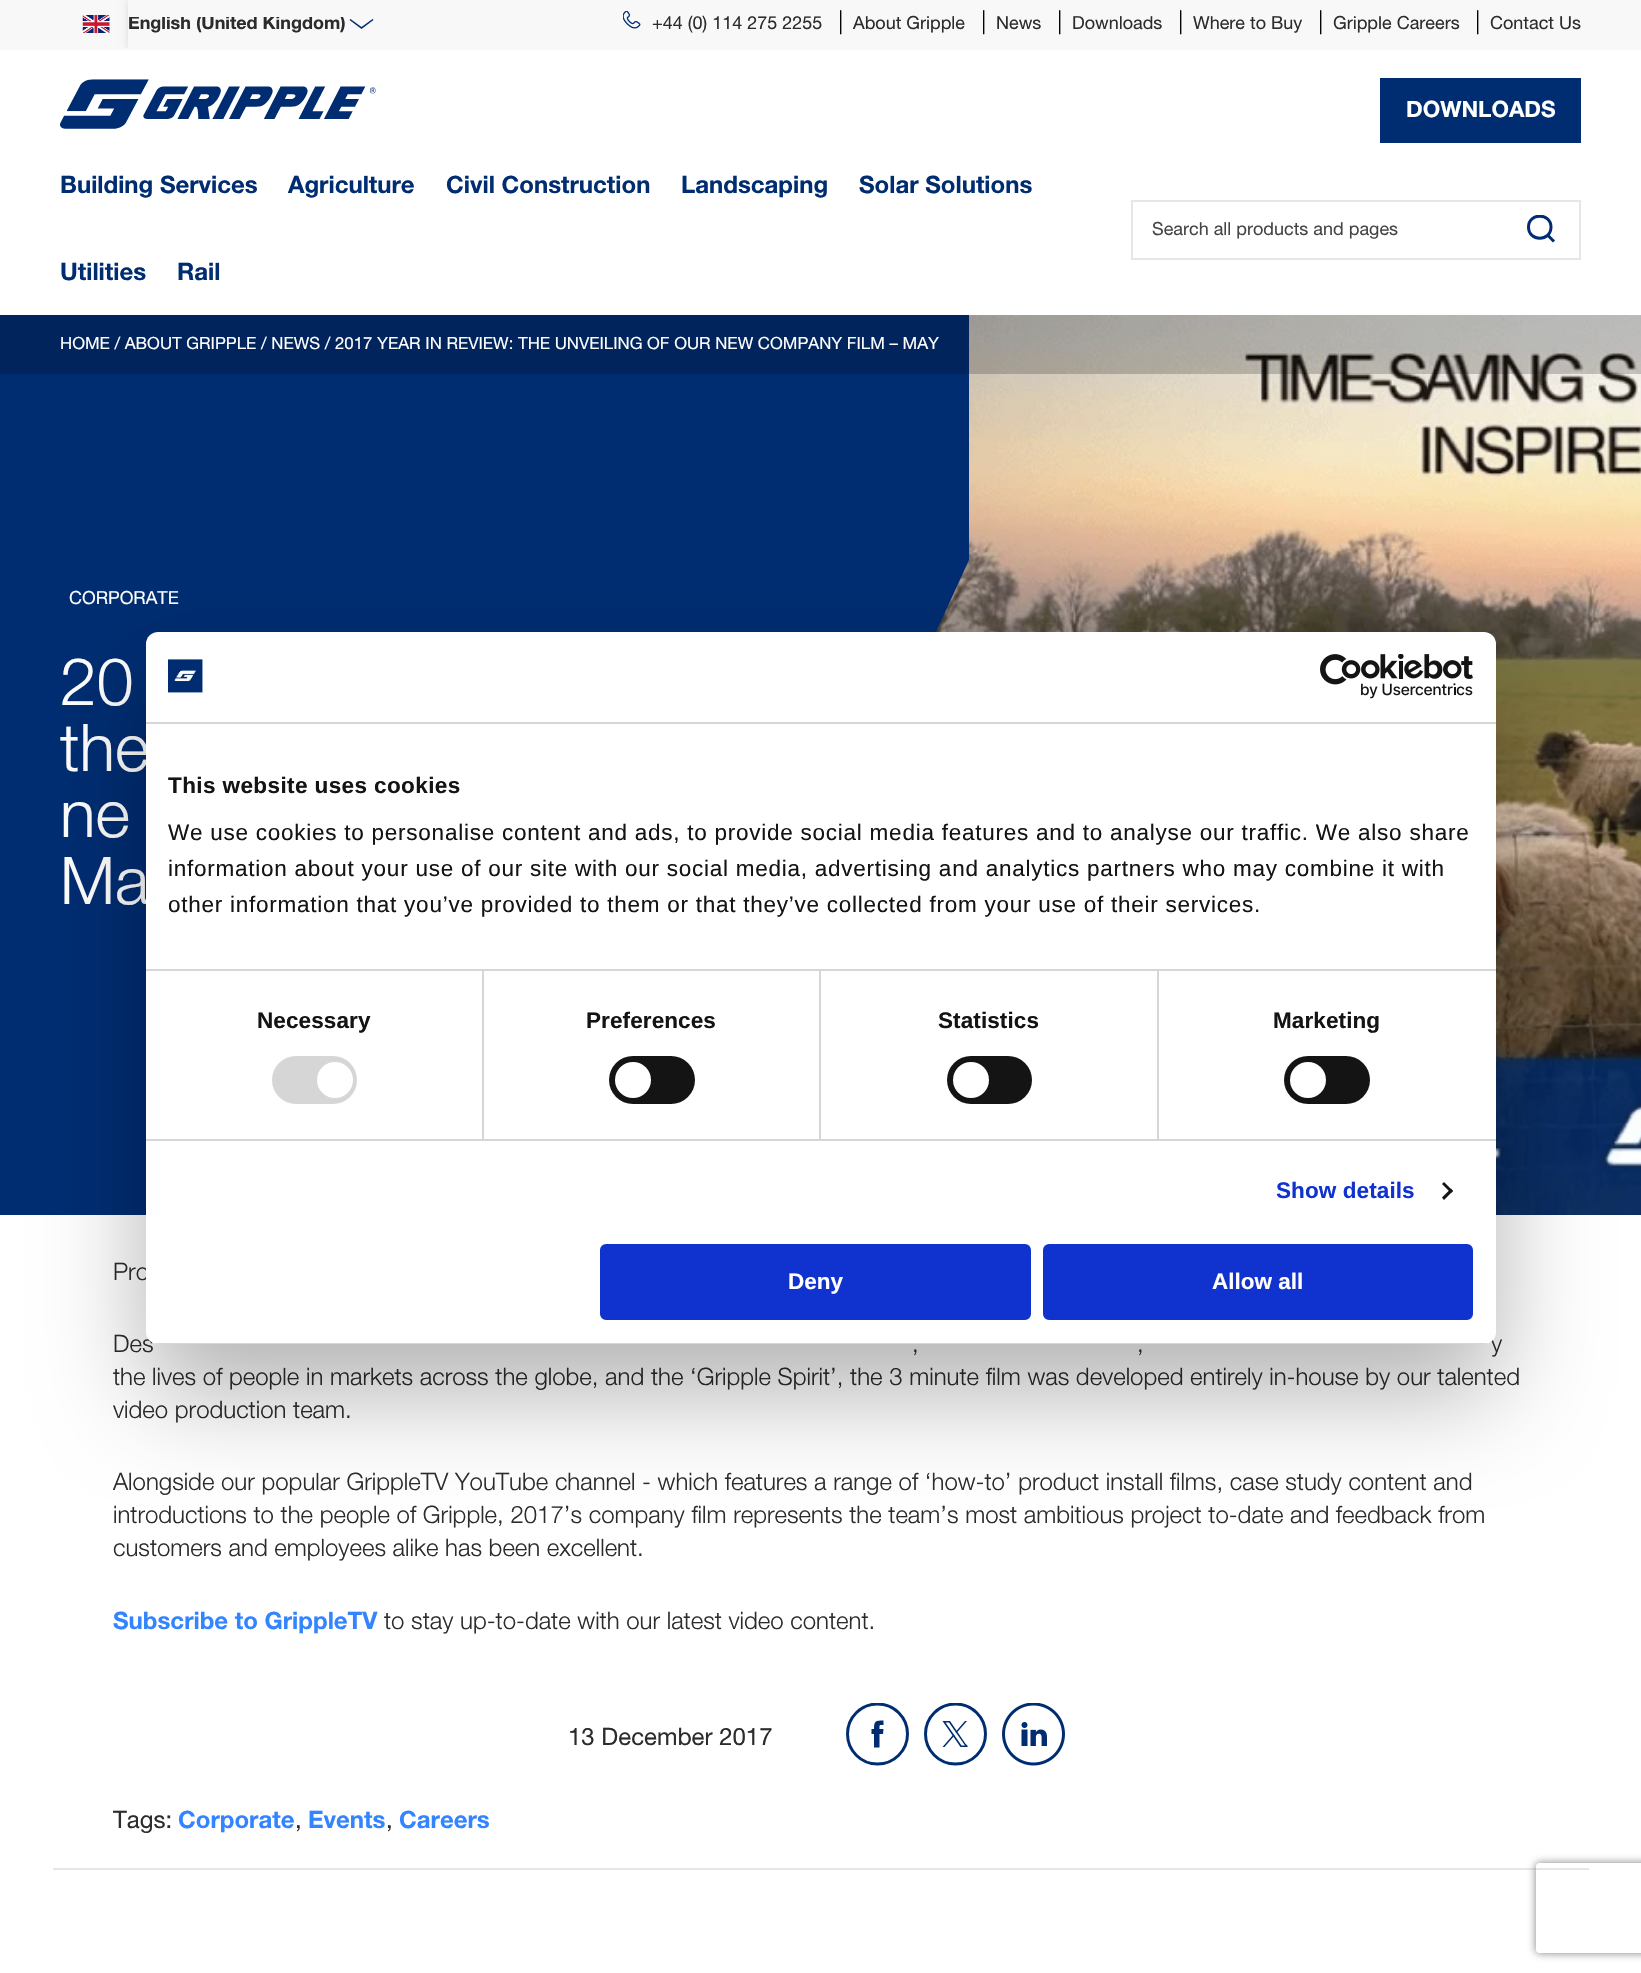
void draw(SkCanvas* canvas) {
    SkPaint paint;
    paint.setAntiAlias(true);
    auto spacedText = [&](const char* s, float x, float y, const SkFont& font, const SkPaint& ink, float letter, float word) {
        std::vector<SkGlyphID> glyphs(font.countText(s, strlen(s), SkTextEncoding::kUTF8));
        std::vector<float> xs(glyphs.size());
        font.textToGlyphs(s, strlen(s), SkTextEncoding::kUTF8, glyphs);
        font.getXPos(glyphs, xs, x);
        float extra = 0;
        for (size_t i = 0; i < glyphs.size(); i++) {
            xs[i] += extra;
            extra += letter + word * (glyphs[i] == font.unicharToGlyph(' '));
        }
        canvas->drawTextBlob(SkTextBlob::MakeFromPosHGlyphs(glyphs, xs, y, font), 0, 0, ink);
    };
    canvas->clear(0xFFFFFFFF);
    paint.setColor(0xFFF8F8F8);
    canvas->drawRect(SkRect::MakeXYWH(0, 0, 1641, 50), paint);
    canvas->drawImageRect(SkImages::DeferredFromEncodedData(SkData::MakeFromFileName("img1.png")), SkRect::MakeXYWH(82, 15, 28, 18), SkSamplingOptions());
    canvas->save();
    canvas->clipRect(SkRect::MakeXYWH(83, 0, 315, 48));
    canvas->clipPath(SkPathBuilder(SkPathFillType::kEvenOdd).moveTo(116, 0).lineTo(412, 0).lineTo(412, 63).lineTo(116, 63).close().moveTo(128, -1).lineTo(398, -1).lineTo(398, 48).lineTo(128, 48).close().detach(), true);
    paint.setColor(0x26000000);
    paint.setMaskFilter(SkMaskFilter::MakeBlur(kNormal_SkBlurStyle, 4));
    canvas->drawRect(SkRect::MakeXYWH(129, 0, 270, 50), paint);
    paint.setMaskFilter(nullptr);
    canvas->restore();
    paint.setColor(0xFF002D72);
    canvas->drawPath(SkPathBuilder().moveTo(372.5f, 19).lineTo(361.5f, 27).lineTo(350.5f, 19).lineTo(349.5f, 20).lineTo(361.5f, 29).lineTo(373.5f, 20).detach(), paint);
    canvas->save();
    canvas->clipRect(SkRect::MakeXYWH(128, 17, 228, 18));
    SkFont font1(fontMgr->matchFamilyStyle("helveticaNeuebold", SkFontStyle::Normal()), 18);
    font1.setSubpixel(true);
    paint.setColor(0xFF2C2C2C);
    canvas->drawString("English (United Kingdom)", 128, 29, font1, paint);
    canvas->restore();
    canvas->drawImageRect(SkImages::DeferredFromEncodedData(SkData::MakeFromFileName("img2.png")), SkRect::MakeXYWH(623, 11, 18, 18), SkSamplingOptions());
    SkFont font2(fontMgr->matchFamilyStyle("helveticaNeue", SkFontStyle::Normal()), 18);
    font2.setSubpixel(true);
    canvas->drawString("+44 (0) 114 275 2255", 652, 29, font2, paint);
    SkFont font3(fontMgr->matchFamilyStyle("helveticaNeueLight", SkFontStyle::Normal()), 24);
    font3.setSubpixel(true);
    paint.setColor(0xFF000000);
    canvas->drawString("|", 838, 29, font3, paint);
    paint.setColor(0xFF2C2C2C);
    canvas->drawString("About Gripple", 853, 29, font2, paint);
    paint.setColor(0xFF000000);
    canvas->drawString("|", 981, 29, font3, paint);
    paint.setColor(0xFF2C2C2C);
    canvas->drawString("News", 996, 29, font2, paint);
    paint.setColor(0xFF000000);
    canvas->drawString("|", 1057, 29, font3, paint);
    paint.setColor(0xFF2C2C2C);
    canvas->drawString("Downloads", 1072, 29, font2, paint);
    paint.setColor(0xFF000000);
    canvas->drawString("|", 1178, 29, font3, paint);
    paint.setColor(0xFF2C2C2C);
    canvas->drawString("Where to Buy", 1193, 29, font2, paint);
    paint.setColor(0xFF000000);
    canvas->drawString("|", 1318, 29, font3, paint);
    paint.setColor(0xFF2C2C2C);
    canvas->drawString("Gripple Careers", 1333, 29, font2, paint);
    paint.setColor(0xFF000000);
    canvas->drawString("|", 1475, 29, font3, paint);
    paint.setColor(0xFF2C2C2C);
    canvas->drawString("Contact Us", 1490, 29, font2, paint);
    canvas->drawImageRect(SkImages::DeferredFromEncodedData(SkData::MakeFromFileName("img3.png")), SkRect::MakeXYWH(60, 79, 316, 50), SkSamplingOptions());
    paint.setColor(0xFF002D72);
    canvas->drawRect(SkRect::MakeXYWH(1380, 78, 201, 65), paint);
    SkFont font4(fontMgr->matchFamilyStyle("helveticaNeuebold", SkFontStyle::Normal()), 22.5f);
    font4.setSubpixel(true);
    paint.setColor(0xFFFFFFFF);
    canvas->drawString("DOWNLOADS", 1406, 117, font4, paint);
    SkFont font5(fontMgr->matchFamilyStyle("helveticaNeuebold", SkFontStyle::Normal()), 24);
    font5.setSubpixel(true);
    paint.setColor(0xFF002D72);
    canvas->drawString("Building Services", 60, 193, font5, paint);
    canvas->drawString("Agriculture", 288, 193, font5, paint);
    canvas->drawString("Civil Construction", 446, 193, font5, paint);
    canvas->drawString("Landscaping", 681, 193, font5, paint);
    canvas->drawString("Solar Solutions", 859, 193, font5, paint);
    canvas->drawString("Utilities", 60, 280, font5, paint);
    canvas->drawString("Rail", 177, 280, font5, paint);
    paint.setStyle(SkPaint::kStroke_Style);
    paint.setStrokeWidth(2);
    paint.setColor(0xFFE6E6E6);
    canvas->drawRect(SkRect::MakeXYWH(1132, 201, 448, 58), paint);
    paint.setStyle(SkPaint::kFill_Style);
    paint.setColor(0xFF464545);
    canvas->drawString("Search all products and pages", 1152, 235, font2, paint);
    canvas->save();
    canvas->clipRect(SkRect::MakeXYWH(1527, 215, 29, 28));
    paint.setStyle(SkPaint::kStroke_Style);
    paint.setStrokeWidth(3);
    paint.setStrokeJoin(SkPaint::kRound_Join);
    paint.setColor(0xFF002D72);
    canvas->drawPath(SkPathBuilder().moveTo(1551, 227).cubicTo(1551, 242, 1528.5f, 242, 1528.5f, 227).cubicTo(1528.5f, 212.5f, 1551, 212.5f, 1551, 227).close().moveTo(1554, 241.5f).lineTo(1548, 235.5f).detach(), paint);
    canvas->restore();
    paint.setStyle(SkPaint::kFill_Style);
    canvas->drawRect(SkRect::MakeXYWH(0, 315, 669, 900), paint);
    canvas->drawImageRect(SkImages::DeferredFromEncodedData(SkData::MakeFromFileName("img4.png")), SkRect::MakeXYWH(936, 315, 705, 900), SkSamplingOptions());
    canvas->drawPath(SkPathBuilder().moveTo(669, 1215).lineTo(669, 315).lineTo(969, 315).lineTo(969, 560).close().detach(), paint);
    paint.setColor(0x33000000);
    canvas->drawRect(SkRect::MakeXYWH(0, 315, 1641, 59), paint);
    SkFont font6(fontMgr->matchFamilyStyle("helveticaNeue", SkFontStyle::Normal()), 16.8f);
    font6.setSubpixel(true);
    paint.setColor(0xFFFFFFFF);
    canvas->drawString("HOME / ABOUT GRIPPLE / NEWS / 2017 YEAR IN REVIEW: THE UNVEILING OF OUR NEW COMPANY FILM – MAY", 60, 349, font6, paint);
    canvas->drawString("CORPORATE", 69, 604, font2, paint);
    SkFont font7(fontMgr->matchFamilyStyle("helveticaNeueLight", SkFontStyle::Normal()), 66);
    font7.setSubpixel(true);
    canvas->drawString("20", 60, 705, font7, paint);
    canvas->drawString("the", 60, 771, font7, paint);
    canvas->drawString("ne", 60, 837, font7, paint);
    canvas->drawString("Ma", 60, 904, font7, paint);
    paint.setColor(0xFF2C2C2C);
    canvas->drawString("Pro", 113, 1280, font3, paint);
    canvas->drawString("Des", 113, 1352, font3, paint);
    canvas->drawString(",", 912, 1352, font3, paint);
    canvas->drawString(",", 1137, 1352, font3, paint);
    canvas->drawString("y", 1491, 1352, font3, paint);
    canvas->drawString("the lives of people in markets across the globe, and the ‘Gripple Spirit’, the 3 minute film was developed entirely in-house by our talented", 113, 1385, font3, paint);
    canvas->drawString("video production team.", 113, 1418, font3, paint);
    canvas->drawString("Alongside our popular GrippleTV YouTube channel - which features a range of ‘how-to’ product install films, case study content and", 113, 1490, font3, paint);
    canvas->drawString("introductions to the people of Gripple, 2017’s company film represents the team’s most ambitious project to-date and feedback from", 113, 1523, font3, paint);
    canvas->drawString("customers and employees alike has been excellent.", 113, 1556, font3, paint);
    paint.setColor(0xFF3384FF);
    canvas->drawString("Subscribe to GrippleTV", 113, 1629, font5, paint);
    paint.setColor(0xFF2C2C2C);
    canvas->drawString("to stay up-to-date with our latest video content.", 384, 1629, font3, paint);
    SkFont font8(fontMgr->matchFamilyStyle("helveticaNeue", SkFontStyle::Normal()), 24);
    font8.setSubpixel(true);
    canvas->drawString("13 December 2017", 568, 1745, font8, paint);
    canvas->save();
    canvas->clipRect(SkRect::MakeXYWH(846, 1703, 63, 63));
    paint.setStyle(SkPaint::kStroke_Style);
    paint.setStrokeJoin(SkPaint::kMiter_Join);
    paint.setColor(0xFF002D72);
    canvas->drawCircle(877.5f, 1734, 30, paint);
    canvas->restore();
    paint.setStyle(SkPaint::kFill_Style);
    canvas->drawPath(SkPathBuilder().moveTo(883, 1734).lineTo(879.5f, 1734).lineTo(879.5f, 1747.5f).lineTo(874, 1747.5f).lineTo(874, 1734).lineTo(871.5f, 1734).lineTo(871.5f, 1729).lineTo(874, 1729).cubicTo(874, 1721, 875.5f, 1720.5f, 883.5f, 1720.5f).lineTo(883.5f, 1725).cubicTo(879, 1725, 879.5f, 1724.5f, 879.5f, 1729).lineTo(883.5f, 1729).close().detach(), paint);
    canvas->save();
    canvas->clipRect(SkRect::MakeXYWH(924, 1703, 63, 63));
    paint.setStyle(SkPaint::kStroke_Style);
    canvas->drawCircle(955.5f, 1734, 30, paint);
    canvas->restore();
    paint.setStyle(SkPaint::kFill_Style);
    canvas->drawPath(SkPathBuilder().moveTo(966, 1744.5f).lineTo(950, 1721).lineTo(942.5f, 1721).lineTo(960.5f, 1747).lineTo(968, 1747).lineTo(966.5f, 1744.5f).close().moveTo(961.5f, 1745.5f).lineTo(945.5f, 1722.5f).lineTo(949, 1722.5f).lineTo(965, 1745.5f).close().detach(), paint);
    canvas->drawPath(SkPathBuilder().moveTo(953.5f, 1734).lineTo(954.5f, 1735.5f).lineTo(944.5f, 1747).lineTo(942.5f, 1747).lineTo(952.5f, 1735.5f).close().moveTo(967, 1721).lineTo(956.5f, 1733).lineTo(955.5f, 1732).lineTo(965, 1721).close().detach(), paint);
    canvas->drawImageRect(SkImages::DeferredFromEncodedData(SkData::MakeFromFileName("img5.png")), SkRect::MakeXYWH(1002, 1703, 63, 63), SkSamplingOptions());
    paint.setColor(0xFFE6E6E6);
    canvas->drawRect(SkRect::MakeXYWH(53, 1868, 1536, 2), paint);
    paint.setColor(0xFF2C2C2C);
    canvas->drawString("Tags:", 113, 1828, font8, paint);
    paint.setColor(0xFF3384FF);
    canvas->drawString("Corporate", 178, 1828, font5, paint);
    paint.setColor(0xFF2C2C2C);
    canvas->drawString(",", 295, 1828, font8, paint);
    paint.setColor(0xFF3384FF);
    canvas->drawString("Events", 308, 1828, font5, paint);
    paint.setColor(0xFF2C2C2C);
    canvas->drawString(",", 386, 1828, font8, paint);
    paint.setColor(0xFF3384FF);
    canvas->drawString("Careers", 399, 1828, font5, paint);
    paint.setColor(0x4D000000);
    paint.setMaskFilter(SkMaskFilter::MakeBlur(kNormal_SkBlurStyle, 51));
    canvas->drawRoundRect(SkRect::MakeXYWH(146, 680, 1350, 712), 12, 12, paint);
    paint.setMaskFilter(nullptr);
    paint.setColor(0xFFFFFFFF);
    canvas->drawRoundRect(SkRect::MakeXYWH(146, 632, 1350, 712), 12, 12, paint);
    paint.setColor(0xFFD6D6D6);
    canvas->drawRect(SkRect::MakeXYWH(146, 722, 1350, 2), paint);
    canvas->drawImageRect(SkImages::DeferredFromEncodedData(SkData::MakeFromFileName("img6.png")), SkRect::MakeXYWH(168, 659, 35, 34), SkSamplingOptions());
    canvas->drawImageRect(SkImages::DeferredFromEncodedData(SkData::MakeFromFileName("img7.png")), SkRect::MakeXYWH(1320, 654, 153, 45), SkSamplingOptions());
    canvas->drawRect(SkRect::MakeXYWH(146, 969, 1350, 2), paint);
    SkFont font9(fontMgr->matchFamilyStyle("Liberation Sans", SkFontStyle::Bold()), 22.5f);
    font9.setSubpixel(true);
    paint.setColor(0xFF141414);
    spacedText("This website uses cookies", 168, 793, font9, paint, 0.4f, 0);
    SkFont font10(fontMgr->matchFamilyStyle("Liberation Sans", SkFontStyle::Normal()), 22.5f);
    font10.setSubpixel(true);
    spacedText("We use cookies to personalise content and ads, to provide social media features and to analyse our traffic. We also share", 168, 840, font10, paint, 0.75f, 0);
    spacedText("information about your use of our site with our social media, advertising and analytics partners who may combine it with", 168, 876, font10, paint, 0.75f, 0);
    spacedText("other information that you’ve provided to them or that they’ve collected from your use of their services.", 168, 912, font10, paint, 0.75f, 0);
    paint.setColor(0xFFD6D6D6);
    canvas->drawRect(SkRect::MakeXYWH(146, 1139, 1350, 2), paint);
    canvas->drawRect(SkRect::MakeXYWH(482, 971, 2, 168), paint);
    paint.setColor(0xFF141414);
    spacedText("Necessary", 257, 1028, font9, paint, 0.1f, 0);
    paint.setColor(0xFFD6D6D6);
    canvas->drawRoundRect(SkRect::MakeXYWH(272, 1056, 85, 48), 24, 24, paint);
    paint.setColor(0xFFFFFFFF);
    canvas->drawCircle(335, 1080, 18, paint);
    paint.setColor(0xFFD6D6D6);
    canvas->drawRect(SkRect::MakeXYWH(819, 971, 2, 168), paint);
    paint.setColor(0xFF141414);
    spacedText("Preferences", 586, 1028, font9, paint, 0.1f, 0);
    canvas->drawRoundRect(SkRect::MakeXYWH(609, 1056, 86, 48), 24, 24, paint);
    paint.setColor(0xFFFFFFFF);
    canvas->drawCircle(633, 1080, 18, paint);
    paint.setColor(0xFFD6D6D6);
    canvas->drawRect(SkRect::MakeXYWH(1157, 971, 2, 168), paint);
    paint.setColor(0xFF141414);
    spacedText("Statistics", 938, 1028, font9, paint, 0.1f, 0);
    canvas->drawRoundRect(SkRect::MakeXYWH(947, 1056, 85, 48), 24, 24, paint);
    paint.setColor(0xFFFFFFFF);
    canvas->drawCircle(971, 1080, 18, paint);
    paint.setColor(0xFF141414);
    spacedText("Marketing", 1273, 1028, font9, paint, 0.1f, 0);
    canvas->drawRoundRect(SkRect::MakeXYWH(1284, 1056, 86, 48), 24, 24, paint);
    paint.setColor(0xFFFFFFFF);
    canvas->drawCircle(1308, 1080, 18, paint);
    paint.setColor(0xFF1032CF);
    spacedText("Show details", 1276, 1198, font9, paint, 0.1f, 0);
    paint.setColor(0xFF141414);
    canvas->drawPath(SkPathBuilder().moveTo(1444, 1182).lineTo(1453, 1191).lineTo(1451, 1193).lineTo(1442, 1184).close().detach(), paint);
    canvas->drawPath(SkPathBuilder().moveTo(1451, 1188.5f).lineTo(1453, 1191).lineTo(1444, 1200).lineTo(1442, 1197.5f).close().detach(), paint);
    canvas->save();
    canvas->clipPath(SkPathBuilder().moveTo(158, 632).lineTo(1484, 632).cubicTo(1490.5f, 632, 1496, 637.5f, 1496, 644).lineTo(1496, 1332).cubicTo(1496, 1338.5f, 1490.5f, 1344, 1484, 1344).lineTo(158, 1344).cubicTo(151.5f, 1344, 146, 1338.5f, 146, 1332).lineTo(146, 644).cubicTo(146, 637.5f, 151.5f, 632, 158, 632).close().detach(), true);
    paint.setColor(0xFFD6D6D6);
    canvas->drawRect(SkRect::MakeXYWH(146, 1343, 1350, 1), paint);
    canvas->restore();
    paint.setColor(0xFF1032CF);
    canvas->drawRoundRect(SkRect::MakeXYWH(601.5f, 1245.5f, 428, 73), 4.5f, 4.5f, paint);
    paint.setStyle(SkPaint::kStroke_Style);
    canvas->drawRoundRect(SkRect::MakeXYWH(601.5f, 1245.5f, 428, 73), 4.5f, 4.5f, paint);
    paint.setStyle(SkPaint::kFill_Style);
    paint.setColor(0xFFFFFFFF);
    canvas->drawString("Deny", 788, 1289, font9, paint);
    paint.setColor(0xFF1032CF);
    canvas->drawRoundRect(SkRect::MakeXYWH(1044.5f, 1245.5f, 427, 73), 4.5f, 4.5f, paint);
    paint.setStyle(SkPaint::kStroke_Style);
    canvas->drawRoundRect(SkRect::MakeXYWH(1044.5f, 1245.5f, 427, 73), 4.5f, 4.5f, paint);
    paint.setStyle(SkPaint::kFill_Style);
    paint.setColor(0xFFFFFFFF);
    canvas->drawString("Allow all", 1212, 1289, font9, paint);
    canvas->save();
    canvas->clipPath(SkPathBuilder(SkPathFillType::kEvenOdd).moveTo(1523, 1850).lineTo(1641, 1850).lineTo(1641, 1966).lineTo(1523, 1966).close().moveTo(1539, 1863).lineTo(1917, 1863).cubicTo(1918.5f, 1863, 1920, 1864.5f, 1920, 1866).lineTo(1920, 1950).cubicTo(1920, 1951.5f, 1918.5f, 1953, 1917, 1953).lineTo(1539, 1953).cubicTo(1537.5f, 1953, 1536, 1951.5f, 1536, 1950).lineTo(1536, 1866).cubicTo(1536, 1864.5f, 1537.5f, 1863, 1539, 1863).close().detach(), true);
    paint.setColor(0xFF808080);
    paint.setMaskFilter(SkMaskFilter::MakeBlur(kNormal_SkBlurStyle, 4));
    canvas->drawRoundRect(SkRect::MakeXYWH(1536, 1863, 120, 90), 3, 3, paint);
    paint.setMaskFilter(nullptr);
    canvas->restore();
}
